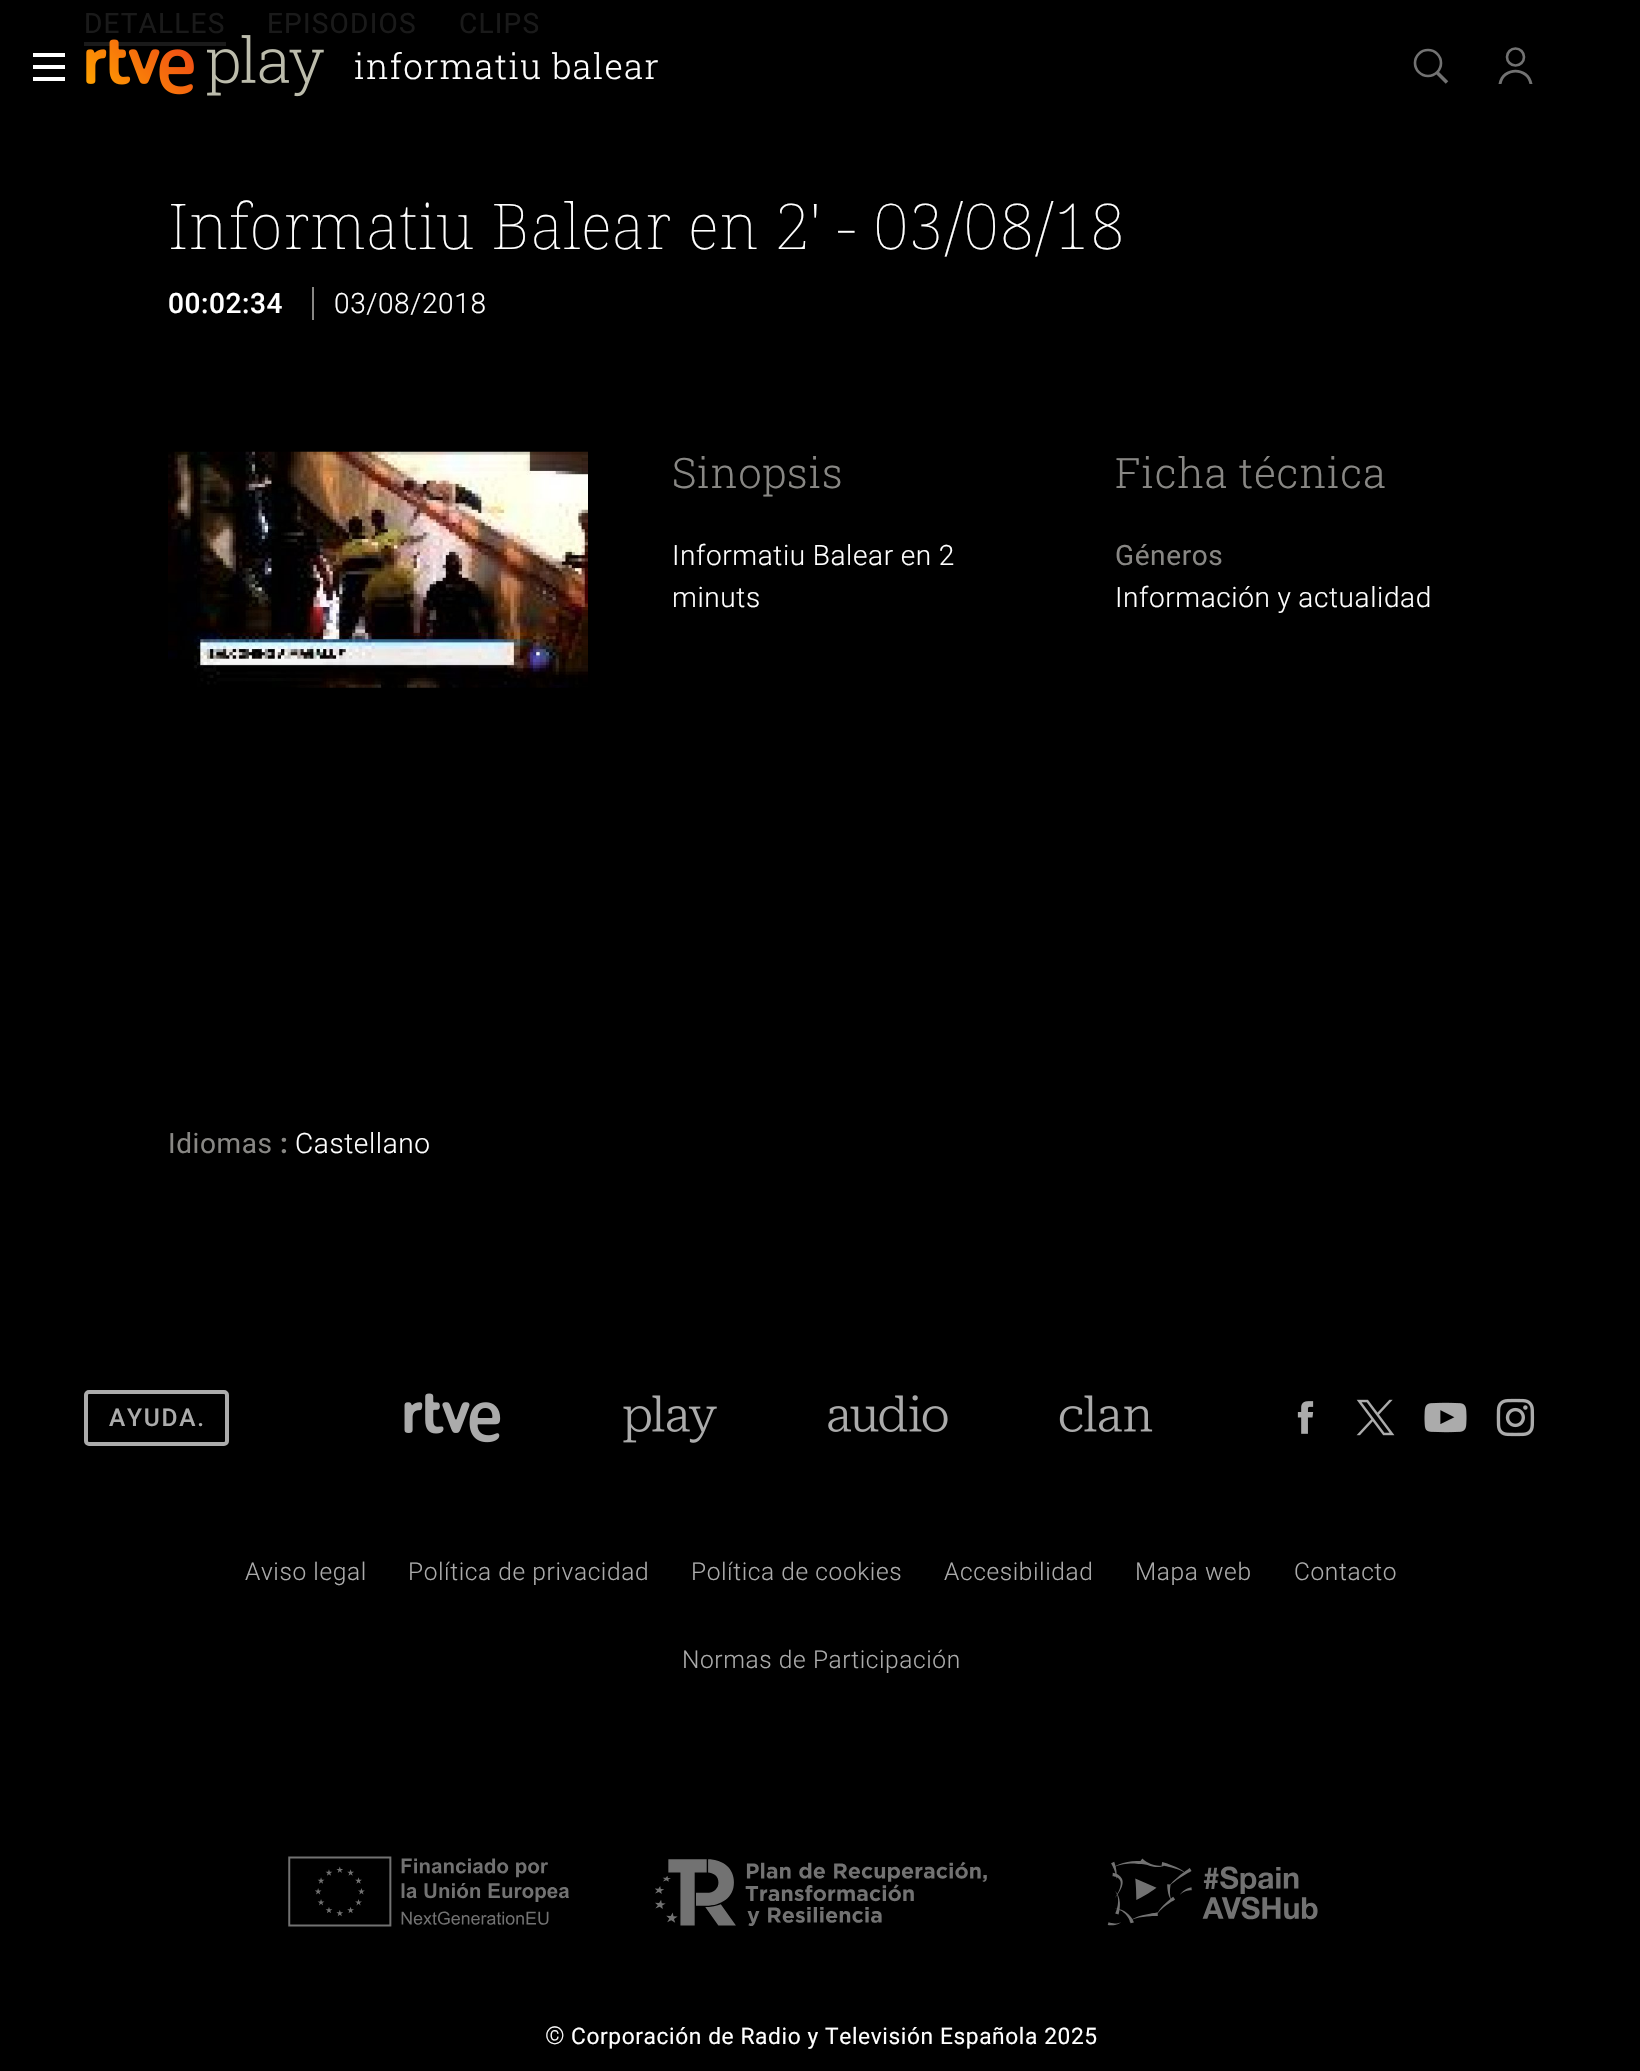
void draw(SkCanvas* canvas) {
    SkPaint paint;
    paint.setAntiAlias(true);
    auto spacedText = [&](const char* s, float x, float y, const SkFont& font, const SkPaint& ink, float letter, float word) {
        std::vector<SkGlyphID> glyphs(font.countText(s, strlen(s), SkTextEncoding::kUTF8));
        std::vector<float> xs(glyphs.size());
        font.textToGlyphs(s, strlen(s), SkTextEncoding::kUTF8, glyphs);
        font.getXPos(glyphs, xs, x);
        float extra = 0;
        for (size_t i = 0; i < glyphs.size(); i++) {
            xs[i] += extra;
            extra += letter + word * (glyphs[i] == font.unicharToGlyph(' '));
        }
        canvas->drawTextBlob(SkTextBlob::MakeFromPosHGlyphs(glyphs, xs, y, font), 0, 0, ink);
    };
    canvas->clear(0xFF000000);
    paint.setColor(0xFF1A1A1A);
    canvas->drawRect(SkRect::MakeXYWH(84, 42, 142, 4), paint);
    SkFont font1(fontMgr->matchFamilyStyle("Roboto", SkFontStyle::Normal()), 28);
    font1.setSubpixel(true);
    spacedText("DETALLES", 84, 33, font1, paint, 1.2f, 0);
    spacedText("EPISODIOS", 267, 33, font1, paint, 1.2f, 0);
    spacedText("CLIPS", 459, 33, font1, paint, 1.2f, 0);
    SkFont font2(fontMgr->matchFamilyStyle("Noto Serif", SkFontStyle(100, SkFontStyle::kNormal_Width, SkFontStyle::kUpright_Slant)), 63);
    font2.setSubpixel(true);
    paint.setColor(0xFFFFFFFF);
    spacedText("Informatiu Balear en 2' - 03/08/18", 168, 249, font2, paint, 0.6f, -0.5f);
    SkFont font3(fontMgr->matchFamilyStyle("Roboto", SkFontStyle(500, SkFontStyle::kNormal_Width, SkFontStyle::kUpright_Slant)), 28);
    font3.setSubpixel(true);
    spacedText("00:02:34", 168, 313, font3, paint, 0.6f, 0);
    SkFont font4(fontMgr->matchFamilyStyle("Roboto", SkFontStyle(300, SkFontStyle::kNormal_Width, SkFontStyle::kUpright_Slant)), 28);
    font4.setSubpixel(true);
    spacedText("03/08/2018", 334, 313, font4, paint, 0.6f, 0);
    paint.setColor(0xFF888784);
    canvas->drawRect(SkRect::MakeXYWH(312, 287, 2, 33), paint);
    canvas->drawImageRect(SkImages::DeferredFromEncodedData(SkData::MakeFromFileName("img1.png")), SkRect::MakeXYWH(168, 451, 420, 237), SkSamplingOptions());
    SkFont font5(fontMgr->matchFamilyStyle("Roboto Slab", SkFontStyle(300, SkFontStyle::kNormal_Width, SkFontStyle::kUpright_Slant)), 42);
    font5.setSubpixel(true);
    spacedText("Sinopsis", 672, 488, font5, paint, 0.6f, 0);
    paint.setColor(0xFFFFFFFF);
    spacedText("Informatiu Balear en 2", 672, 565, font4, paint, 0.6f, -0.5f);
    spacedText("minuts", 672, 607, font4, paint, 0.6f, 0);
    paint.setColor(0xFF888784);
    spacedText("Ficha técnica", 1115, 488, font5, paint, 0.6f, -0.5f);
    spacedText("Géneros", 1115, 565, font1, paint, 0.6f, 0);
    paint.setColor(0xFFFFFFFF);
    spacedText("Información y actualidad", 1115, 607, font4, paint, 0.6f, -0.5f);
    paint.setColor(0xFF888784);
    spacedText("Idiomas", 168, 1153, font1, paint, 0.6f, 0);
    SkFont font6(fontMgr->matchFamilyStyle("Roboto", SkFontStyle::Bold()), 28);
    font6.setSubpixel(true);
    spacedText(":", 280, 1153, font6, paint, 0.6f, 0);
    paint.setColor(0xFFFFFFFF);
    spacedText("Castellano", 295, 1153, font4, paint, 0.6f, 0);
    canvas->drawRect(SkRect::MakeXYWH(33, 53, 32, 4), paint);
    canvas->drawRect(SkRect::MakeXYWH(33, 65, 32, 4), paint);
    canvas->drawRect(SkRect::MakeXYWH(33, 77, 32, 4), paint);
    canvas->drawImageRect(SkImages::DeferredFromEncodedData(SkData::MakeFromFileName("img2.png")), SkRect::MakeXYWH(86, 39, 108, 56), SkSamplingOptions());
    canvas->drawImageRect(SkImages::DeferredFromEncodedData(SkData::MakeFromFileName("img3.png")), SkRect::MakeXYWH(207, 35, 117, 62), SkSamplingOptions());
    SkFont font7(fontMgr->matchFamilyStyle("Roboto Slab", SkFontStyle(300, SkFontStyle::kNormal_Width, SkFontStyle::kUpright_Slant)), 35);
    font7.setSubpixel(true);
    spacedText("informatiu balear", 354, 79, font7, paint, 1.2f, 0);
    paint.setStyle(SkPaint::kStroke_Style);
    paint.setStrokeWidth(2.6f);
    paint.setColor(0xFF727272);
    canvas->drawCircle(1428, 63, 13, paint);
    paint.setStrokeWidth(3.5f);
    canvas->drawPath(SkPathBuilder().moveTo(1437, 72.5f).lineTo(1447, 82.5f).detach(), paint);
    paint.setStyle(SkPaint::kFill_Style);
    canvas->drawPath(SkPathBuilder().moveTo(1501.5f, 84).cubicTo(1504, 68.5f, 1527, 68.5f, 1529.5f, 84).lineTo(1532.5f, 84).cubicTo(1529.5f, 65, 1501.5f, 65, 1498.5f, 84).close().detach(), paint);
    paint.setStyle(SkPaint::kStroke_Style);
    paint.setStrokeWidth(2.6f);
    canvas->drawCircle(1515.5f, 57, 8.5f, paint);
    paint.setStrokeWidth(4);
    paint.setColor(0xFFABABAB);
    canvas->drawRoundRect(SkRect::MakeXYWH(86, 1392, 141, 52), 3, 3, paint);
    SkFont font8(fontMgr->matchFamilyStyle("Roboto", SkFontStyle(500, SkFontStyle::kNormal_Width, SkFontStyle::kUpright_Slant)), 24.5f);
    font8.setSubpixel(true);
    paint.setStyle(SkPaint::kFill_Style);
    spacedText("AYUDA.", 109, 1426, font8, paint, 1.75f, 0);
    canvas->drawImageRect(SkImages::DeferredFromEncodedData(SkData::MakeFromFileName("img4.png")), SkRect::MakeXYWH(404, 1393, 97, 50), SkSamplingOptions());
    canvas->drawImageRect(SkImages::DeferredFromEncodedData(SkData::MakeFromFileName("img5.png")), SkRect::MakeXYWH(623, 1395, 94, 48), SkSamplingOptions());
    canvas->drawImageRect(SkImages::DeferredFromEncodedData(SkData::MakeFromFileName("img6.png")), SkRect::MakeXYWH(828, 1395, 120, 37), SkSamplingOptions());
    canvas->drawImageRect(SkImages::DeferredFromEncodedData(SkData::MakeFromFileName("img7.png")), SkRect::MakeXYWH(1059, 1395, 94, 37), SkSamplingOptions());
    canvas->drawImageRect(SkImages::DeferredFromEncodedData(SkData::MakeFromFileName("img8.png")), SkRect::MakeXYWH(1297, 1401, 17, 33), SkSamplingOptions());
    canvas->drawImageRect(SkImages::DeferredFromEncodedData(SkData::MakeFromFileName("img9.png")), SkRect::MakeXYWH(1356, 1399, 39, 37), SkSamplingOptions());
    canvas->drawImageRect(SkImages::DeferredFromEncodedData(SkData::MakeFromFileName("img10.png")), SkRect::MakeXYWH(1424, 1402, 43, 31), SkSamplingOptions());
    canvas->drawImageRect(SkImages::DeferredFromEncodedData(SkData::MakeFromFileName("img11.png")), SkRect::MakeXYWH(1496, 1398, 39, 39), SkSamplingOptions());
    SkFont font9(fontMgr->matchFamilyStyle("Roboto", SkFontStyle(300, SkFontStyle::kNormal_Width, SkFontStyle::kUpright_Slant)), 24.5f);
    font9.setSubpixel(true);
    spacedText("Aviso legal", 245, 1580, font9, paint, 0.6f, 0);
    spacedText("Política de privacidad", 408, 1580, font9, paint, 0.6f, 0);
    spacedText("Política de cookies", 691, 1580, font9, paint, 0.6f, 0);
    spacedText("Accesibilidad", 944, 1580, font9, paint, 0.6f, 0);
    spacedText("Mapa web", 1135, 1580, font9, paint, 0.6f, 0);
    spacedText("Contacto", 1294, 1580, font9, paint, 0.6f, 0);
    spacedText("Normas de Participación", 682, 1668, font9, paint, 0.6f, 0);
    canvas->drawImageRect(SkImages::DeferredFromEncodedData(SkData::MakeFromFileName("img12.png")), SkRect::MakeXYWH(288, 1856, 281, 71), SkSamplingOptions());
    canvas->drawImageRect(SkImages::DeferredFromEncodedData(SkData::MakeFromFileName("img13.png")), SkRect::MakeXYWH(655, 1859, 332, 67), SkSamplingOptions());
    canvas->drawImageRect(SkImages::DeferredFromEncodedData(SkData::MakeFromFileName("img14.png")), SkRect::MakeXYWH(1107, 1858, 211, 68), SkSamplingOptions());
    paint.setColor(0xFFFFFFFF);
    spacedText("©", 545, 2044, font9, paint, 0.6f, 0);
    SkFont font10(fontMgr->matchFamilyStyle("Roboto", SkFontStyle::Normal()), 22.75f);
    font10.setSubpixel(true);
    spacedText("Corporación de Radio y Televisión Española 2025", 571, 2044, font10, paint, 0.6f, 0);
}
